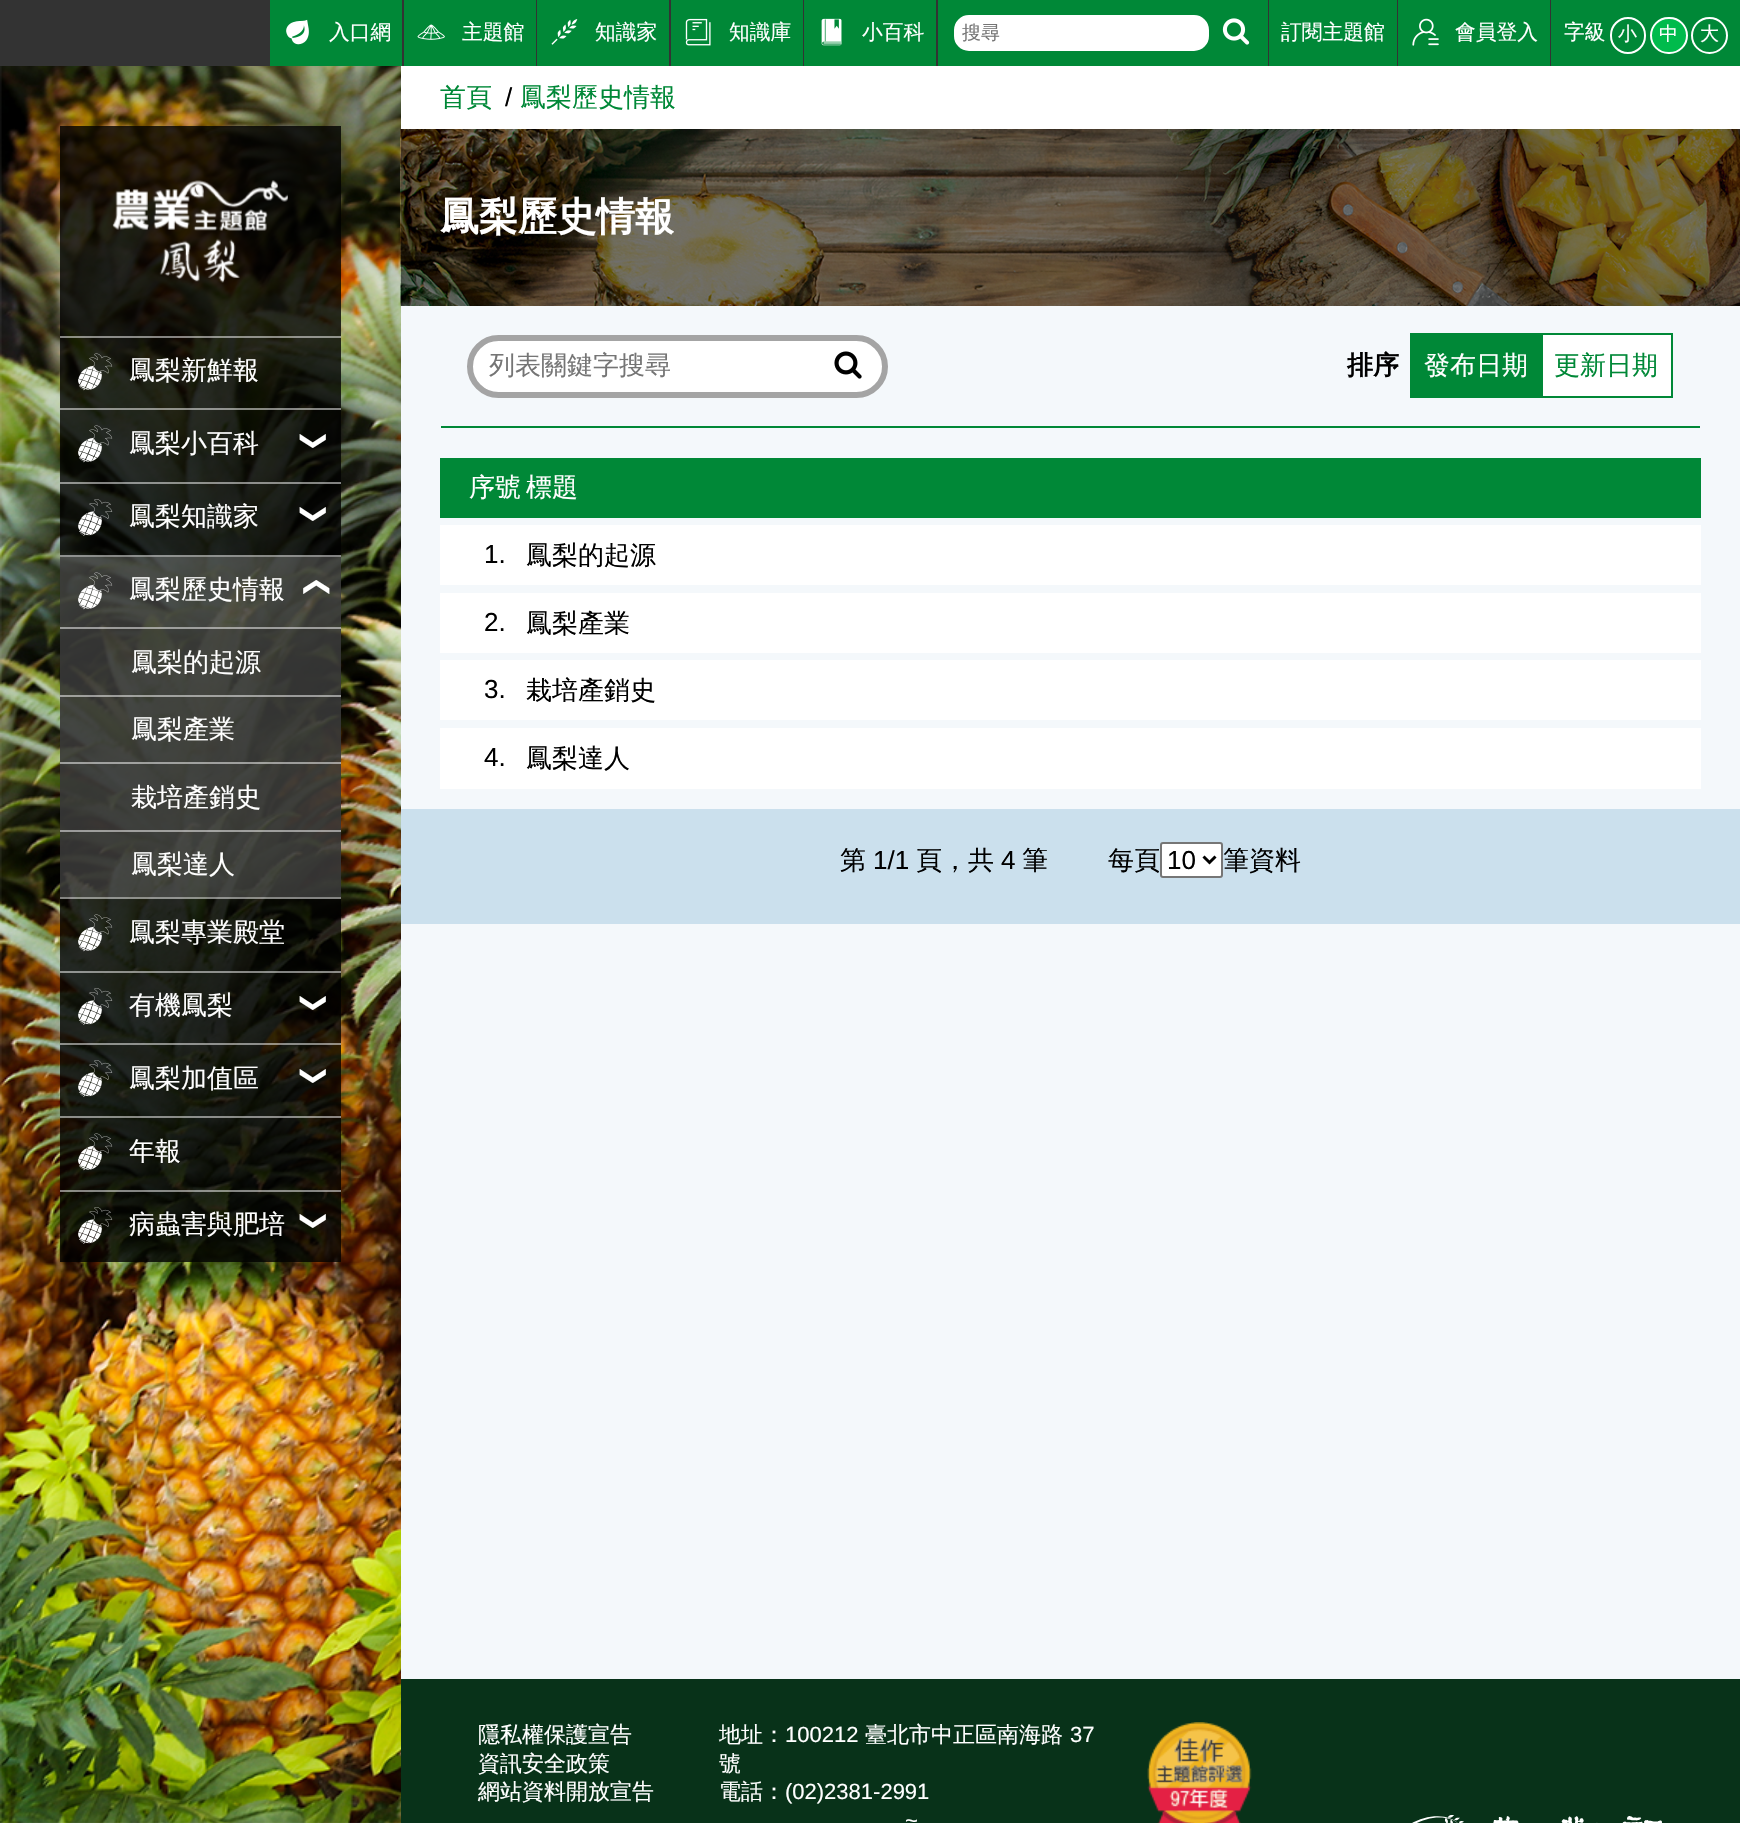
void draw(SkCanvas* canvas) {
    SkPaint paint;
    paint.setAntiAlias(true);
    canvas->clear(0xFFFFFFFF);
    canvas->drawImageRect(SkImages::DeferredFromEncodedData(SkData::MakeFromFileName("img1.png")), SkRect::MakeXYWH(0, 66, 401, 1757), SkSamplingOptions());
    paint.setColor(0xFF333333);
    canvas->drawRect(SkRect::MakeXYWH(0, 0, 1551, 66), paint);
    paint.setColor(0xFF008837);
    canvas->drawRect(SkRect::MakeXYWH(270, 0, 132, 66), paint);
    canvas->drawImageRect(SkImages::DeferredFromEncodedData(SkData::MakeFromFileName("img2.png")), SkRect::MakeXYWH(286, 19, 23, 26), SkSamplingOptions());
    SkFont font1(fontMgr->matchFamilyStyle("WenQuanYi Zen Hei", SkFontStyle(500, SkFontStyle::kNormal_Width, SkFontStyle::kUpright_Slant)), 20.75f);
    font1.setSubpixel(true);
    paint.setColor(0xFFFFFFFF);
    canvas->drawString("入口網", 329, 39, font1, paint);
    paint.setColor(0xFF008837);
    canvas->drawRect(SkRect::MakeXYWH(404, 0, 132, 66), paint);
    canvas->drawImageRect(SkImages::DeferredFromEncodedData(SkData::MakeFromFileName("img3.png")), SkRect::MakeXYWH(417, 24, 28, 16), SkSamplingOptions());
    paint.setColor(0xFFFFFFFF);
    canvas->drawString("主題館", 462, 39, font1, paint);
    paint.setColor(0xFF008837);
    canvas->drawRect(SkRect::MakeXYWH(537, 0, 132, 66), paint);
    canvas->drawImageRect(SkImages::DeferredFromEncodedData(SkData::MakeFromFileName("img4.png")), SkRect::MakeXYWH(551, 19, 27, 26), SkSamplingOptions());
    paint.setColor(0xFFFFFFFF);
    canvas->drawString("知識家", 595, 39, font1, paint);
    paint.setColor(0xFF008837);
    canvas->drawRect(SkRect::MakeXYWH(671, 0, 132, 66), paint);
    canvas->drawImageRect(SkImages::DeferredFromEncodedData(SkData::MakeFromFileName("img5.png")), SkRect::MakeXYWH(685, 18, 26, 28), SkSamplingOptions());
    paint.setColor(0xFFFFFFFF);
    canvas->drawString("知識庫", 729, 39, font1, paint);
    paint.setColor(0xFF008837);
    canvas->drawRect(SkRect::MakeXYWH(804, 0, 132, 66), paint);
    canvas->drawImageRect(SkImages::DeferredFromEncodedData(SkData::MakeFromFileName("img6.png")), SkRect::MakeXYWH(821, 18, 21, 28), SkSamplingOptions());
    paint.setColor(0xFFFFFFFF);
    canvas->drawString("小百科", 862, 39, font1, paint);
    paint.setColor(0xFF008837);
    canvas->drawRect(SkRect::MakeXYWH(938, 0, 330, 66), paint);
    paint.setColor(0xFFFFFFFF);
    canvas->drawRoundRect(SkRect::MakeXYWH(955, 16, 253, 34), 14, 14, paint);
    paint.setStyle(SkPaint::kStroke_Style);
    paint.setStrokeWidth(2);
    canvas->drawRoundRect(SkRect::MakeXYWH(955, 16, 253, 34), 14, 14, paint);
    SkFont font2(fontMgr->matchFamilyStyle("WenQuanYi Zen Hei", SkFontStyle(500, SkFontStyle::kNormal_Width, SkFontStyle::kUpright_Slant)), 19);
    font2.setSubpixel(true);
    paint.setStyle(SkPaint::kFill_Style);
    paint.setColor(0xFF757575);
    canvas->drawString("搜尋", 962, 39, font2, paint);
    canvas->drawImageRect(SkImages::DeferredFromEncodedData(SkData::MakeFromFileName("img7.png")), SkRect::MakeXYWH(1222, 18, 28, 27), SkSamplingOptions());
    paint.setColor(0xFF008837);
    canvas->drawRect(SkRect::MakeXYWH(1269, 0, 128, 66), paint);
    paint.setColor(0xFFFFFFFF);
    canvas->drawString("訂閱主題館", 1281, 39, font1, paint);
    paint.setColor(0xFF008837);
    canvas->drawRect(SkRect::MakeXYWH(1398, 0, 152, 66), paint);
    canvas->drawImageRect(SkImages::DeferredFromEncodedData(SkData::MakeFromFileName("img8.png")), SkRect::MakeXYWH(1412, 18, 27, 28), SkSamplingOptions());
    paint.setColor(0xFFFFFFFF);
    canvas->drawString("會員登入", 1455, 39, font1, paint);
    paint.setColor(0xFF008837);
    canvas->drawRect(SkRect::MakeXYWH(1551, 0, 189, 66), paint);
    paint.setColor(0xFFFFFFFF);
    canvas->drawString("字級", 1564, 39, font1, paint);
    paint.setStyle(SkPaint::kStroke_Style);
    canvas->drawRoundRect(SkRect::MakeXYWH(1611, 18, 34, 35), 17, 17, paint);
    paint.setStyle(SkPaint::kFill_Style);
    canvas->drawString("小", 1618, 40, font2, paint);
    paint.setColor(0xFF00BB4C);
    canvas->drawRoundRect(SkRect::MakeXYWH(1651, 18, 36, 35), 17.5f, 17.5f, paint);
    paint.setStyle(SkPaint::kStroke_Style);
    paint.setColor(0xFFFFFFFF);
    canvas->drawRoundRect(SkRect::MakeXYWH(1651, 18, 36, 35), 17.5f, 17.5f, paint);
    paint.setStyle(SkPaint::kFill_Style);
    canvas->drawString("中", 1659, 40, font2, paint);
    paint.setStyle(SkPaint::kStroke_Style);
    canvas->drawCircle(1709.5f, 35.5f, 17.5f, paint);
    paint.setStyle(SkPaint::kFill_Style);
    canvas->drawString("大", 1700, 40, font2, paint);
    paint.setColor(0xCC000000);
    canvas->drawRect(SkRect::MakeXYWH(60, 126, 281, 1136), paint);
    canvas->drawImageRect(SkImages::DeferredFromEncodedData(SkData::MakeFromFileName("img9.png")), SkRect::MakeXYWH(112, 180, 176, 103), SkSamplingOptions());
    paint.setColor(0x80FFFFFF);
    canvas->drawRect(SkRect::MakeXYWH(60, 336, 281, 2), paint);
    canvas->drawImageRect(SkImages::DeferredFromEncodedData(SkData::MakeFromFileName("img10.png")), SkRect::MakeXYWH(78, 353, 35, 38), SkSamplingOptions());
    SkFont font3(fontMgr->matchFamilyStyle("WenQuanYi Zen Hei", SkFontStyle(500, SkFontStyle::kNormal_Width, SkFontStyle::kUpright_Slant)), 26);
    font3.setSubpixel(true);
    paint.setColor(0xFFFFFFFF);
    canvas->drawString("鳳梨新鮮報", 129, 379, font3, paint);
    paint.setColor(0x80FFFFFF);
    canvas->drawRect(SkRect::MakeXYWH(60, 408, 281, 2), paint);
    canvas->drawImageRect(SkImages::DeferredFromEncodedData(SkData::MakeFromFileName("img11.png")), SkRect::MakeXYWH(78, 425, 35, 38), SkSamplingOptions());
    paint.setColor(0xFFFFFFFF);
    canvas->drawString("鳳梨小百科", 129, 452, font3, paint);
    SkFont font4(fontMgr->matchFamilyStyle("DejaVu Sans", SkFontStyle::Normal()), 26);
    font4.setSubpixel(true);
    canvas->save();
    canvas->rotate(90, 306, 430);
    canvas->drawString("❯", 306, 430, font4, paint);
    canvas->restore();
    paint.setColor(0x80FFFFFF);
    canvas->drawRect(SkRect::MakeXYWH(60, 482, 281, 2), paint);
    canvas->drawImageRect(SkImages::DeferredFromEncodedData(SkData::MakeFromFileName("img12.png")), SkRect::MakeXYWH(78, 499, 35, 37), SkSamplingOptions());
    paint.setColor(0xFFFFFFFF);
    canvas->drawString("鳳梨知識家", 129, 525, font3, paint);
    canvas->save();
    canvas->rotate(90, 306, 503);
    canvas->drawString("❯", 306, 503, font4, paint);
    canvas->restore();
    paint.setColor(0x80FFFFFF);
    canvas->drawRect(SkRect::MakeXYWH(60, 555, 281, 2), paint);
    paint.setColor(0x33FFFFFF);
    canvas->drawRect(SkRect::MakeXYWH(60, 557, 281, 70), paint);
    canvas->drawImageRect(SkImages::DeferredFromEncodedData(SkData::MakeFromFileName("img13.png")), SkRect::MakeXYWH(78, 572, 35, 38), SkSamplingOptions());
    paint.setColor(0xFFFFFFFF);
    canvas->drawString("鳳梨歷史情報", 129, 598, font3, paint);
    canvas->save();
    canvas->rotate(-90, 323, 598);
    canvas->drawString("❯", 323, 598, font4, paint);
    canvas->restore();
    paint.setColor(0x80646464);
    canvas->drawRect(SkRect::MakeXYWH(60, 627, 281, 270), paint);
    paint.setColor(0x80FFFFFF);
    canvas->drawRect(SkRect::MakeXYWH(60, 627, 281, 2), paint);
    paint.setColor(0xFFFFFFFF);
    canvas->drawString("鳳梨的起源", 131, 671, font3, paint);
    paint.setColor(0x80FFFFFF);
    canvas->drawRect(SkRect::MakeXYWH(60, 695, 281, 2), paint);
    paint.setColor(0xFFFFFFFF);
    canvas->drawString("鳳梨產業", 131, 738, font3, paint);
    paint.setColor(0x80FFFFFF);
    canvas->drawRect(SkRect::MakeXYWH(60, 762, 281, 2), paint);
    paint.setColor(0xFFFFFFFF);
    canvas->drawString("栽培產銷史", 131, 806, font3, paint);
    paint.setColor(0x80FFFFFF);
    canvas->drawRect(SkRect::MakeXYWH(60, 830, 281, 2), paint);
    paint.setColor(0xFFFFFFFF);
    canvas->drawString("鳳梨達人", 131, 873, font3, paint);
    paint.setColor(0x80FFFFFF);
    canvas->drawRect(SkRect::MakeXYWH(60, 897, 281, 2), paint);
    canvas->drawImageRect(SkImages::DeferredFromEncodedData(SkData::MakeFromFileName("img14.png")), SkRect::MakeXYWH(78, 914, 35, 38), SkSamplingOptions());
    paint.setColor(0xFFFFFFFF);
    canvas->drawString("鳳梨專業殿堂", 129, 941, font3, paint);
    paint.setColor(0x80FFFFFF);
    canvas->drawRect(SkRect::MakeXYWH(60, 971, 281, 2), paint);
    canvas->drawImageRect(SkImages::DeferredFromEncodedData(SkData::MakeFromFileName("img15.png")), SkRect::MakeXYWH(78, 988, 35, 37), SkSamplingOptions());
    paint.setColor(0xFFFFFFFF);
    canvas->drawString("有機鳳梨", 129, 1014, font3, paint);
    canvas->save();
    canvas->rotate(90, 306, 992);
    canvas->drawString("❯", 306, 992, font4, paint);
    canvas->restore();
    paint.setColor(0x80FFFFFF);
    canvas->drawRect(SkRect::MakeXYWH(60, 1043, 281, 2), paint);
    canvas->drawImageRect(SkImages::DeferredFromEncodedData(SkData::MakeFromFileName("img16.png")), SkRect::MakeXYWH(78, 1060, 35, 37), SkSamplingOptions());
    paint.setColor(0xFFFFFFFF);
    canvas->drawString("鳳梨加值區", 129, 1087, font3, paint);
    canvas->save();
    canvas->rotate(90, 306, 1065);
    canvas->drawString("❯", 306, 1065, font4, paint);
    canvas->restore();
    paint.setColor(0x80FFFFFF);
    canvas->drawRect(SkRect::MakeXYWH(60, 1116, 281, 2), paint);
    canvas->drawImageRect(SkImages::DeferredFromEncodedData(SkData::MakeFromFileName("img17.png")), SkRect::MakeXYWH(78, 1133, 35, 38), SkSamplingOptions());
    paint.setColor(0xFFFFFFFF);
    canvas->drawString("年報", 129, 1160, font3, paint);
    paint.setColor(0x80FFFFFF);
    canvas->drawRect(SkRect::MakeXYWH(60, 1190, 281, 2), paint);
    canvas->drawImageRect(SkImages::DeferredFromEncodedData(SkData::MakeFromFileName("img18.png")), SkRect::MakeXYWH(78, 1207, 35, 37), SkSamplingOptions());
    paint.setColor(0xFFFFFFFF);
    canvas->drawString("病蟲害與肥培", 129, 1233, font3, paint);
    canvas->save();
    canvas->rotate(90, 306, 1210);
    canvas->drawString("❯", 306, 1210, font4, paint);
    canvas->restore();
    paint.setColor(0xFFF4F8FB);
    canvas->drawRect(SkRect::MakeXYWH(401, 306, 1339, 1373), paint);
    paint.setColor(0xFF008837);
    canvas->drawString("首頁", 440, 106, font3, paint);
    SkFont font5(fontMgr->matchFamilyStyle("Liberation Sans", SkFontStyle::Normal()), 26);
    font5.setSubpixel(true);
    paint.setColor(0xFF000000);
    canvas->drawString("/", 505, 106, font5, paint);
    paint.setColor(0xFF008837);
    canvas->drawString("鳳梨歷史情報", 520, 106, font3, paint);
    canvas->drawImageRect(SkImages::DeferredFromEncodedData(SkData::MakeFromFileName("img19.png")), SkRect::MakeXYWH(400, 129, 1340, 177), SkSamplingOptions());
    SkFont font6(fontMgr->matchFamilyStyle("WenQuanYi Zen Hei", SkFontStyle::Bold()), 39);
    font6.setSubpixel(true);
    paint.setColor(0xFFFFFFFF);
    canvas->drawString("鳳梨歷史情報", 440, 230, font6, paint);
    paint.setColor(0xFF008837);
    canvas->drawRect(SkRect::MakeXYWH(441, 426, 1259, 2), paint);
    paint.setColor(0xFFFFFFFF);
    canvas->drawRoundRect(SkRect::MakeXYWH(470, 338, 415, 57), 28.5f, 28.5f, paint);
    paint.setStyle(SkPaint::kStroke_Style);
    paint.setStrokeWidth(6);
    paint.setColor(0xFFA4A4A4);
    canvas->drawRoundRect(SkRect::MakeXYWH(470, 338, 415, 57), 28.5f, 28.5f, paint);
    paint.setStyle(SkPaint::kFill_Style);
    paint.setColor(0xFFFFFFFF);
    canvas->drawRect(SkRect::MakeXYWH(486, 344, 1, 45), paint);
    paint.setColor(0xFF757575);
    canvas->drawString("列表關鍵字搜尋", 489, 374, font3, paint);
    canvas->drawImageRect(SkImages::DeferredFromEncodedData(SkData::MakeFromFileName("img20.png")), SkRect::MakeXYWH(834, 351, 28, 28), SkSamplingOptions());
    SkFont font7(fontMgr->matchFamilyStyle("WenQuanYi Zen Hei", SkFontStyle::Bold()), 26);
    font7.setSubpixel(true);
    paint.setColor(0xFF000000);
    canvas->drawString("排序", 1347, 374, font7, paint);
    paint.setColor(0xFF008837);
    canvas->drawRect(SkRect::MakeXYWH(1410, 333, 131, 65), paint);
    paint.setColor(0xFFFFFFFF);
    canvas->drawString("發布日期", 1424, 374, font3, paint);
    canvas->drawRect(SkRect::MakeXYWH(1542, 334, 130, 63), paint);
    paint.setStyle(SkPaint::kStroke_Style);
    paint.setStrokeWidth(2);
    paint.setColor(0xFF008837);
    canvas->drawRect(SkRect::MakeXYWH(1542, 334, 130, 63), paint);
    paint.setStyle(SkPaint::kFill_Style);
    canvas->drawString("更新日期", 1554, 374, font3, paint);
    canvas->drawRect(SkRect::MakeXYWH(440, 458, 1261, 60), paint);
    paint.setColor(0xFFFFFFFF);
    canvas->drawString("序號", 469, 496, font3, paint);
    canvas->drawString("標題", 526, 496, font3, paint);
    canvas->drawRect(SkRect::MakeXYWH(440, 525, 1261, 60), paint);
    paint.setColor(0xFF000000);
    canvas->drawString("1.", 484, 563, font5, paint);
    canvas->drawString("鳳梨的起源", 526, 564, font3, paint);
    paint.setColor(0xFFFFFFFF);
    canvas->drawRect(SkRect::MakeXYWH(440, 593, 1261, 60), paint);
    paint.setColor(0xFF000000);
    canvas->drawString("2.", 484, 631, font5, paint);
    canvas->drawString("鳳梨產業", 526, 632, font3, paint);
    paint.setColor(0xFFFFFFFF);
    canvas->drawRect(SkRect::MakeXYWH(440, 660, 1261, 60), paint);
    paint.setColor(0xFF000000);
    canvas->drawString("3.", 484, 698, font5, paint);
    canvas->drawString("栽培產銷史", 526, 699, font3, paint);
    paint.setColor(0xFFFFFFFF);
    canvas->drawRect(SkRect::MakeXYWH(440, 728, 1261, 61), paint);
    paint.setColor(0xFF000000);
    canvas->drawString("4.", 484, 766, font5, paint);
    canvas->drawString("鳳梨達人", 526, 767, font3, paint);
    paint.setColor(0xFFCBE0ED);
    canvas->drawRect(SkRect::MakeXYWH(401, 809, 1339, 115), paint);
    paint.setColor(0xFF000000);
    canvas->drawString("第", 840, 869, font3, paint);
    canvas->drawString("1/1", 873, 869, font5, paint);
    canvas->drawString("頁，共", 916, 869, font3, paint);
    canvas->drawString("4", 1001, 869, font5, paint);
    canvas->drawString("筆", 1022, 869, font3, paint);
    canvas->drawString("每頁", 1108, 869, font3, paint);
    paint.setColor(0xFFFFFFFF);
    canvas->drawRoundRect(SkRect::MakeXYWH(1161, 843, 61, 34), 2, 2, paint);
    paint.setStyle(SkPaint::kStroke_Style);
    paint.setColor(0xFF767676);
    canvas->drawRoundRect(SkRect::MakeXYWH(1161, 843, 61, 34), 2, 2, paint);
    paint.setStrokeWidth(3);
    paint.setColor(0xFF000000);
    canvas->drawPath(SkPathBuilder().moveTo(1203.5f, 856.5f).lineTo(1209.5f, 862.5f).lineTo(1215.5f, 856.5f).detach(), paint);
    paint.setStyle(SkPaint::kFill_Style);
    canvas->drawString("10", 1167, 869, font5, paint);
    canvas->drawString("筆資料", 1223, 869, font3, paint);
    paint.setColor(0xFF083219);
    canvas->drawRect(SkRect::MakeXYWH(401, 1679, 1339, 144), paint);
    SkFont font8(fontMgr->matchFamilyStyle("WenQuanYi Zen Hei", SkFontStyle(500, SkFontStyle::kNormal_Width, SkFontStyle::kUpright_Slant)), 22);
    font8.setSubpixel(true);
    paint.setColor(0xFFFFFFFF);
    canvas->drawString("隱私權保護宣告", 478, 1742, font8, paint);
    canvas->drawString("資訊安全政策", 478, 1771, font8, paint);
    canvas->drawString("網站資料開放宣告", 478, 1799, font8, paint);
    canvas->drawString("地址：", 719, 1742, font8, paint);
    SkFont font9(fontMgr->matchFamilyStyle("Liberation Sans", SkFontStyle::Normal()), 22);
    font9.setSubpixel(true);
    canvas->drawString("100212", 785, 1742, font9, paint);
    canvas->drawString("臺北市中正區南海路", 865, 1742, font8, paint);
    canvas->drawString("37", 1070, 1742, font9, paint);
    canvas->drawString("號", 719, 1771, font8, paint);
    canvas->drawString("電話：", 719, 1799, font8, paint);
    canvas->drawString("(02)2381-2991", 785, 1799, font9, paint);
    canvas->drawString("~", 905, 1828, font9, paint);
    canvas->drawImageRect(SkImages::DeferredFromEncodedData(SkData::MakeFromFileName("img21.png")), SkRect::MakeXYWH(1147, 1722, 105, 101), SkSamplingOptions());
    canvas->drawImageRect(SkImages::DeferredFromEncodedData(SkData::MakeFromFileName("img22.png")), SkRect::MakeXYWH(1412, 1815, 250, 8), SkSamplingOptions());
}
